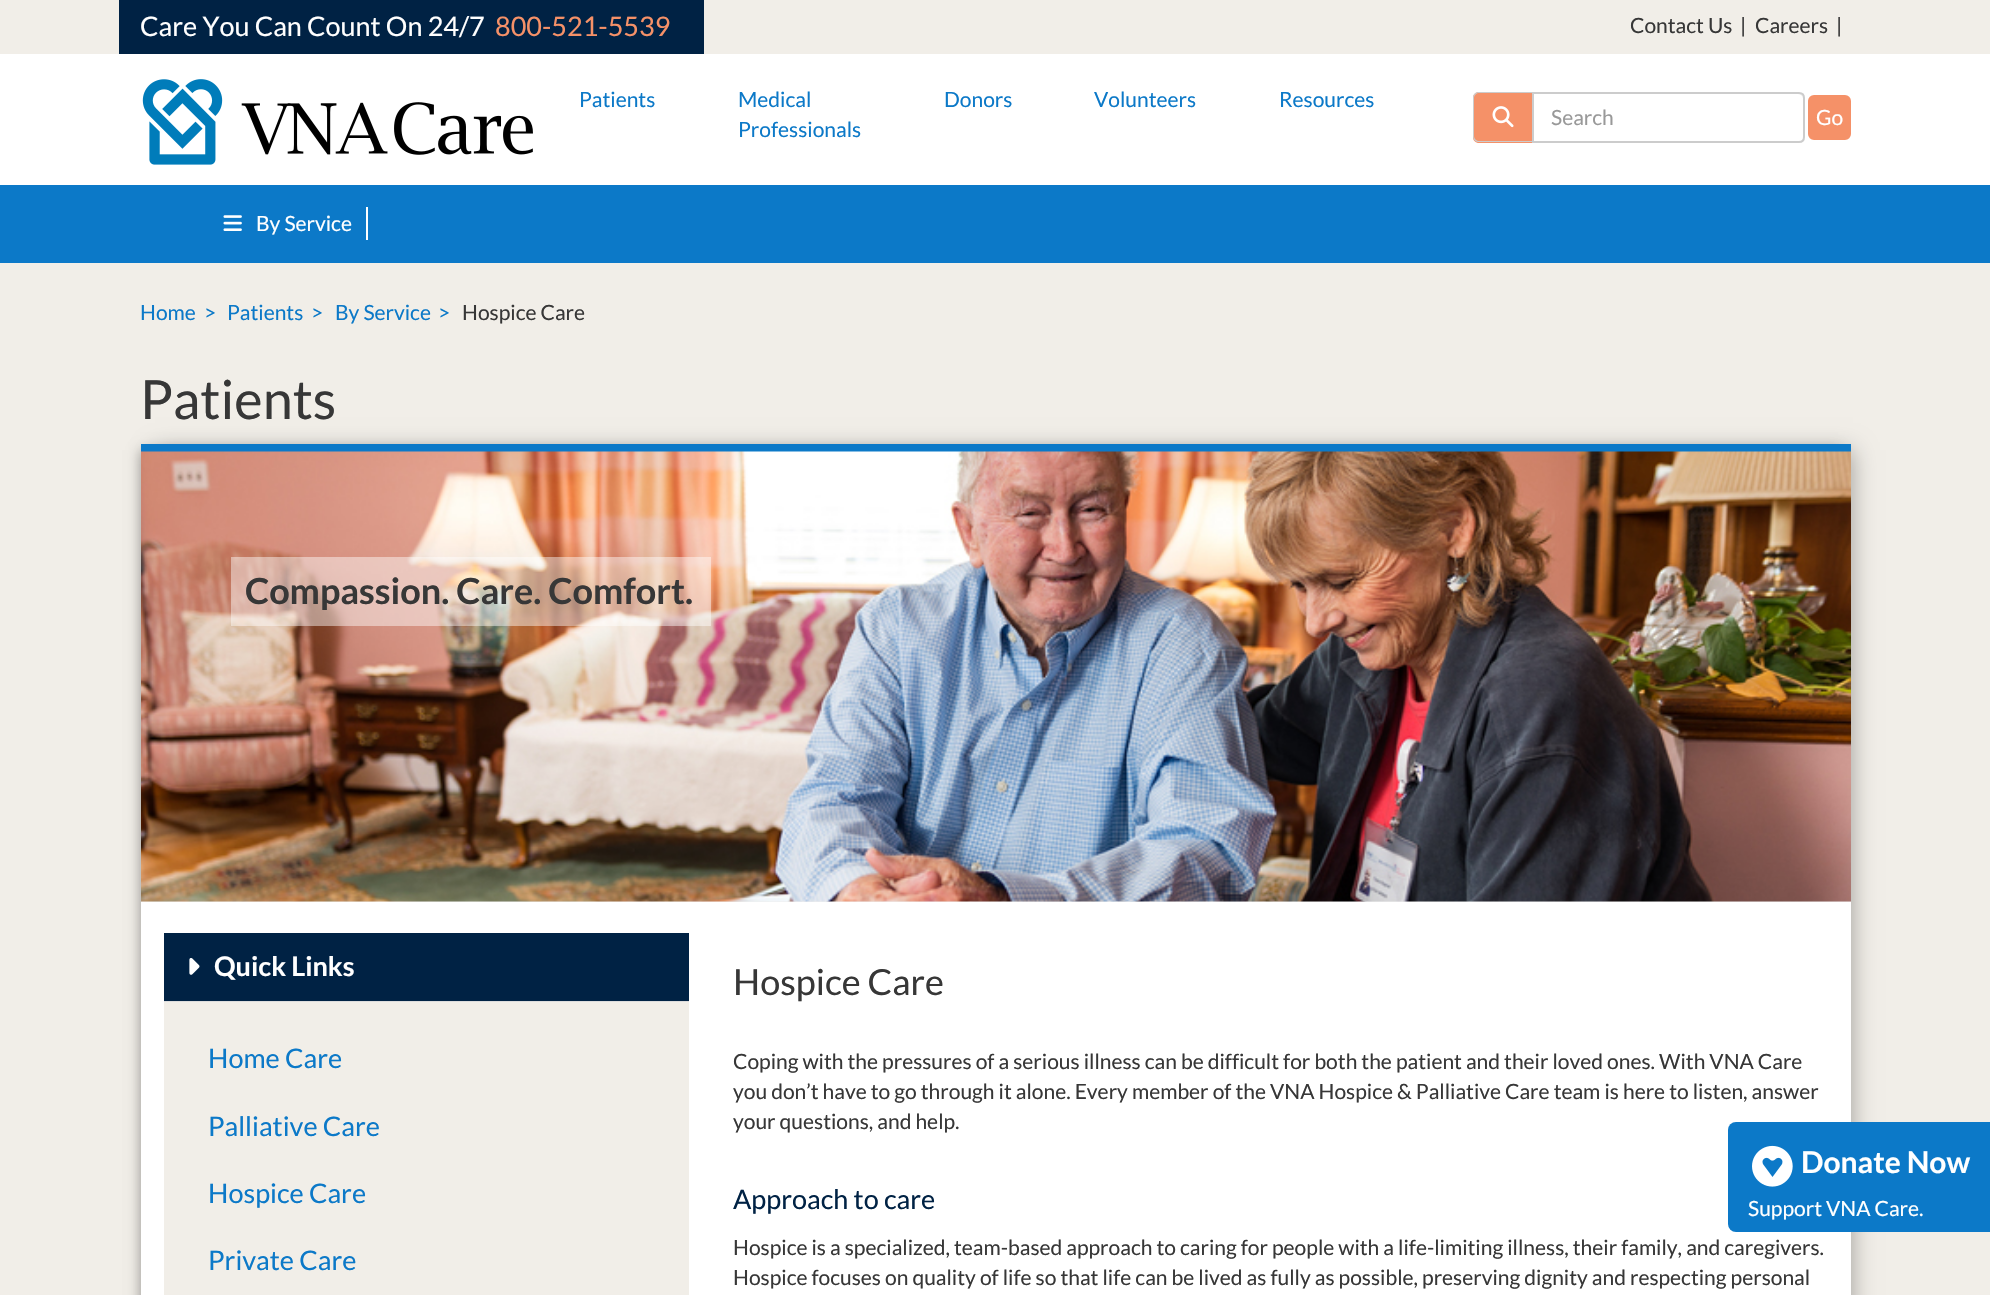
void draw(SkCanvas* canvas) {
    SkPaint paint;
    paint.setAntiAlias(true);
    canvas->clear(0xFF0C79C8);
    paint.setColor(0xFFFFFFFF);
    canvas->drawRect(SkRect::MakeXYWH(0, 54, 1990, 131), paint);
    paint.setColor(0xFFF1EEE8);
    canvas->drawRect(SkRect::MakeXYWH(0, 0, 1990, 54), paint);
    paint.setColor(0xFF002244);
    canvas->drawRect(SkRect::MakeXYWH(119, 0, 585, 54), paint);
    SkFont font1(fontMgr->matchFamilyStyle("Lato", SkFontStyle::Normal()), 27);
    font1.setSubpixel(true);
    paint.setColor(0xFFFFFFFF);
    canvas->drawString("Care You Can Count On 24/7", 140, 36, font1, paint);
    paint.setColor(0xFFF59168);
    canvas->drawString("800-521-5539", 495, 36, font1, paint);
    SkFont font2(fontMgr->matchFamilyStyle("Lato", SkFontStyle::Normal()), 21);
    font2.setSubpixel(true);
    paint.setColor(0xFF373737);
    canvas->drawString("Contact Us", 1630, 33, font2, paint);
    canvas->drawString("|", 1740, 33, font2, paint);
    canvas->drawString("Careers", 1755, 33, font2, paint);
    canvas->drawString("|", 1836, 33, font2, paint);
    canvas->drawImageRect(SkImages::DeferredFromEncodedData(SkData::MakeFromFileName("img1.png")), SkRect::MakeXYWH(142, 79, 391, 86), SkSamplingOptions());
    paint.setColor(0xFF0C79C8);
    canvas->drawString("Patients", 579, 107, font2, paint);
    canvas->drawString("Medical", 738, 107, font2, paint);
    canvas->drawString("Professionals", 738, 137, font2, paint);
    canvas->drawString("Donors", 944, 107, font2, paint);
    canvas->drawString("Volunteers", 1094, 107, font2, paint);
    canvas->drawString("Resources", 1279, 107, font2, paint);
    paint.setColor(0xFFF59168);
    canvas->drawPath(SkPathBuilder().moveTo(1479, 92).lineTo(1532, 92).lineTo(1532, 143).lineTo(1479, 143).cubicTo(1475.5f, 143, 1473, 140.5f, 1473, 137).lineTo(1473, 98).cubicTo(1473, 94.5f, 1475.5f, 92, 1479, 92).close().detach(), paint);
    paint.setColor(0xFFCCCCCC);
    canvas->drawPath(SkPathBuilder(SkPathFillType::kEvenOdd).moveTo(1479, 92).lineTo(1532, 92).lineTo(1532, 142).lineTo(1479, 142).cubicTo(1476, 142, 1473, 140, 1473, 136).lineTo(1473, 98).cubicTo(1473, 94, 1476, 92, 1479, 92).close().moveTo(1479, 93).lineTo(1532, 93).lineTo(1532, 141).lineTo(1479, 141).cubicTo(1477, 141, 1474, 139, 1474, 136).lineTo(1474, 98).cubicTo(1474, 95, 1477, 93, 1479, 93).close().detach(), paint);
    canvas->drawImageRect(SkImages::DeferredFromEncodedData(SkData::MakeFromFileName("img2.png")), SkRect::MakeXYWH(1492, 106, 22, 22), SkSamplingOptions());
    paint.setColor(0xFFECECEC);
    canvas->drawPath(SkPathBuilder().moveTo(1533, 94).lineTo(1798, 94).cubicTo(1801, 94, 1803, 97, 1803, 99).cubicTo(1803, 96, 1801, 93, 1798, 93).lineTo(1533, 93).close().detach(), paint);
    paint.setStyle(SkPaint::kStroke_Style);
    paint.setStrokeWidth(2);
    paint.setColor(0xFFCCCCCC);
    canvas->drawPath(SkPathBuilder().moveTo(1533, 93).lineTo(1799, 93).cubicTo(1802, 93, 1804, 95, 1804, 98).lineTo(1804, 137).cubicTo(1804, 140, 1802, 142, 1799, 142).lineTo(1533, 142).close().detach(), paint);
    paint.setStyle(SkPaint::kFill_Style);
    paint.setColor(0xFF999999);
    canvas->drawString("Search", 1551, 125, font2, paint);
    paint.setColor(0xFFF59168);
    canvas->drawRoundRect(SkRect::MakeXYWH(1809, 96, 41, 43), 5, 5, paint);
    paint.setStyle(SkPaint::kStroke_Style);
    canvas->drawRoundRect(SkRect::MakeXYWH(1809, 96, 41, 43), 5, 5, paint);
    paint.setStyle(SkPaint::kFill_Style);
    paint.setColor(0xFFFFFFFF);
    canvas->drawString("Go", 1816, 125, font2, paint);
    canvas->drawRect(SkRect::MakeXYWH(366, 207, 2, 33), paint);
    canvas->drawImageRect(SkImages::DeferredFromEncodedData(SkData::MakeFromFileName("img3.png")), SkRect::MakeXYWH(223, 215, 19, 16), SkSamplingOptions());
    canvas->drawString("By Service", 256, 231, font2, paint);
    paint.setColor(0xFFF1EEE8);
    canvas->drawRect(SkRect::MakeXYWH(0, 263, 1990, 1032), paint);
    paint.setColor(0xFF0C79C8);
    canvas->drawString("Home", 140, 320, font2, paint);
    canvas->drawString(">", 204, 320, font2, paint);
    canvas->drawString("Patients", 227, 320, font2, paint);
    canvas->drawString(">", 311, 320, font2, paint);
    canvas->drawString("By Service", 335, 320, font2, paint);
    canvas->drawString(">", 438, 320, font2, paint);
    paint.setColor(0xFF373737);
    canvas->drawString("Hospice Care", 462, 320, font2, paint);
    paint.setColor(0x4D000000);
    paint.setMaskFilter(SkMaskFilter::MakeBlur(kNormal_SkBlurStyle, 11));
    canvas->drawRect(SkRect::MakeXYWH(155, 450, 1698, 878), paint);
    paint.setMaskFilter(nullptr);
    SkFont font3(fontMgr->matchFamilyStyle("Lato", SkFontStyle::Normal()), 54);
    font3.setSubpixel(true);
    paint.setColor(0xFF373737);
    canvas->drawString("Patients", 140, 419, font3, paint);
    paint.setColor(0x4D000000);
    paint.setMaskFilter(SkMaskFilter::MakeBlur(kNormal_SkBlurStyle, 6));
    canvas->drawRect(SkRect::MakeXYWH(140, 450, 1698, 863), paint);
    paint.setMaskFilter(nullptr);
    paint.setColor(0xFFFFFFFF);
    canvas->drawRect(SkRect::MakeXYWH(141, 902, 1710, 393), paint);
    paint.setColor(0xFF0C79C8);
    canvas->drawRect(SkRect::MakeXYWH(141, 444, 1710, 8), paint);
    paint.setColor(0xFFEEEEEE);
    canvas->drawRect(SkRect::MakeXYWH(141, 901, 1710, 1), paint);
    canvas->drawImageRect(SkImages::DeferredFromEncodedData(SkData::MakeFromFileName("img4.png")), SkRect::MakeXYWH(141, 451, 1710, 451), SkSamplingOptions());
    paint.setColor(0x73FFFFFF);
    canvas->drawRect(SkRect::MakeXYWH(231, 557, 480, 69), paint);
    SkFont font4(fontMgr->matchFamilyStyle("Lato", SkFontStyle::Bold()), 36);
    font4.setSubpixel(true);
    paint.setColor(0xFF373737);
    canvas->drawString("Compassion. Care. Comfort.", 245, 604, font4, paint);
    paint.setColor(0xFF002244);
    canvas->drawRect(SkRect::MakeXYWH(164, 933, 525, 68), paint);
    paint.setColor(0xFFDDDDDD);
    canvas->drawRect(SkRect::MakeXYWH(164, 1001, 525, 1), paint);
    canvas->drawImageRect(SkImages::DeferredFromEncodedData(SkData::MakeFromFileName("img5.png")), SkRect::MakeXYWH(189, 958, 11, 17), SkSamplingOptions());
    SkFont font5(fontMgr->matchFamilyStyle("Lato", SkFontStyle::Bold()), 27);
    font5.setSubpixel(true);
    paint.setColor(0xFFFFFFFF);
    canvas->drawString("Quick Links", 214, 976, font5, paint);
    paint.setColor(0xFFF1EEE8);
    canvas->drawRect(SkRect::MakeXYWH(164, 1002, 525, 293), paint);
    paint.setColor(0xFF0C79C8);
    canvas->drawString("Home Care", 208, 1068, font1, paint);
    canvas->drawString("Palliative Care", 208, 1136, font1, paint);
    canvas->drawString("Hospice Care", 208, 1203, font1, paint);
    canvas->drawString("Private Care", 208, 1270, font1, paint);
    SkFont font6(fontMgr->matchFamilyStyle("Lato", SkFontStyle::Normal()), 36);
    font6.setSubpixel(true);
    paint.setColor(0xFF373737);
    canvas->drawString("Hospice Care", 733, 995, font6, paint);
    canvas->drawString("Coping with the pressures of a serious illness can be difficult for both the patient and their loved ones. With VNA Care", 733, 1069, font2, paint);
    canvas->drawString("you don’t have to go through it alone. Every member of the VNA Hospice & Palliative Care team is here to listen, answer", 733, 1099, font2, paint);
    canvas->drawString("your questions, and help.", 733, 1129, font2, paint);
    paint.setColor(0xFF002244);
    canvas->drawString("Approach to care", 733, 1209, font1, paint);
    paint.setColor(0xFF373737);
    canvas->drawString("Hospice is a specialized, team-based approach to caring for people with a life-limiting illness, their family, and caregivers.", 733, 1255, font2, paint);
    canvas->drawString("Hospice focuses on quality of life so that life can be lived as fully as possible, preserving dignity and respecting personal", 733, 1285, font2, paint);
    paint.setColor(0xFF0C79C8);
    canvas->drawRoundRect(SkRect::MakeXYWH(1728, 1122, 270, 110), 8, 8, paint);
    canvas->drawImageRect(SkImages::DeferredFromEncodedData(SkData::MakeFromFileName("img6.png")), SkRect::MakeXYWH(1752, 1145, 41, 42), SkSamplingOptions());
    SkFont font7(fontMgr->matchFamilyStyle("Lato", SkFontStyle::Bold()), 30);
    font7.setSubpixel(true);
    paint.setColor(0xFFFFFFFF);
    canvas->drawString("Donate Now", 1801, 1173, font7, paint);
    canvas->drawString("Support VNA Care.", 1748, 1216, font2, paint);
}
